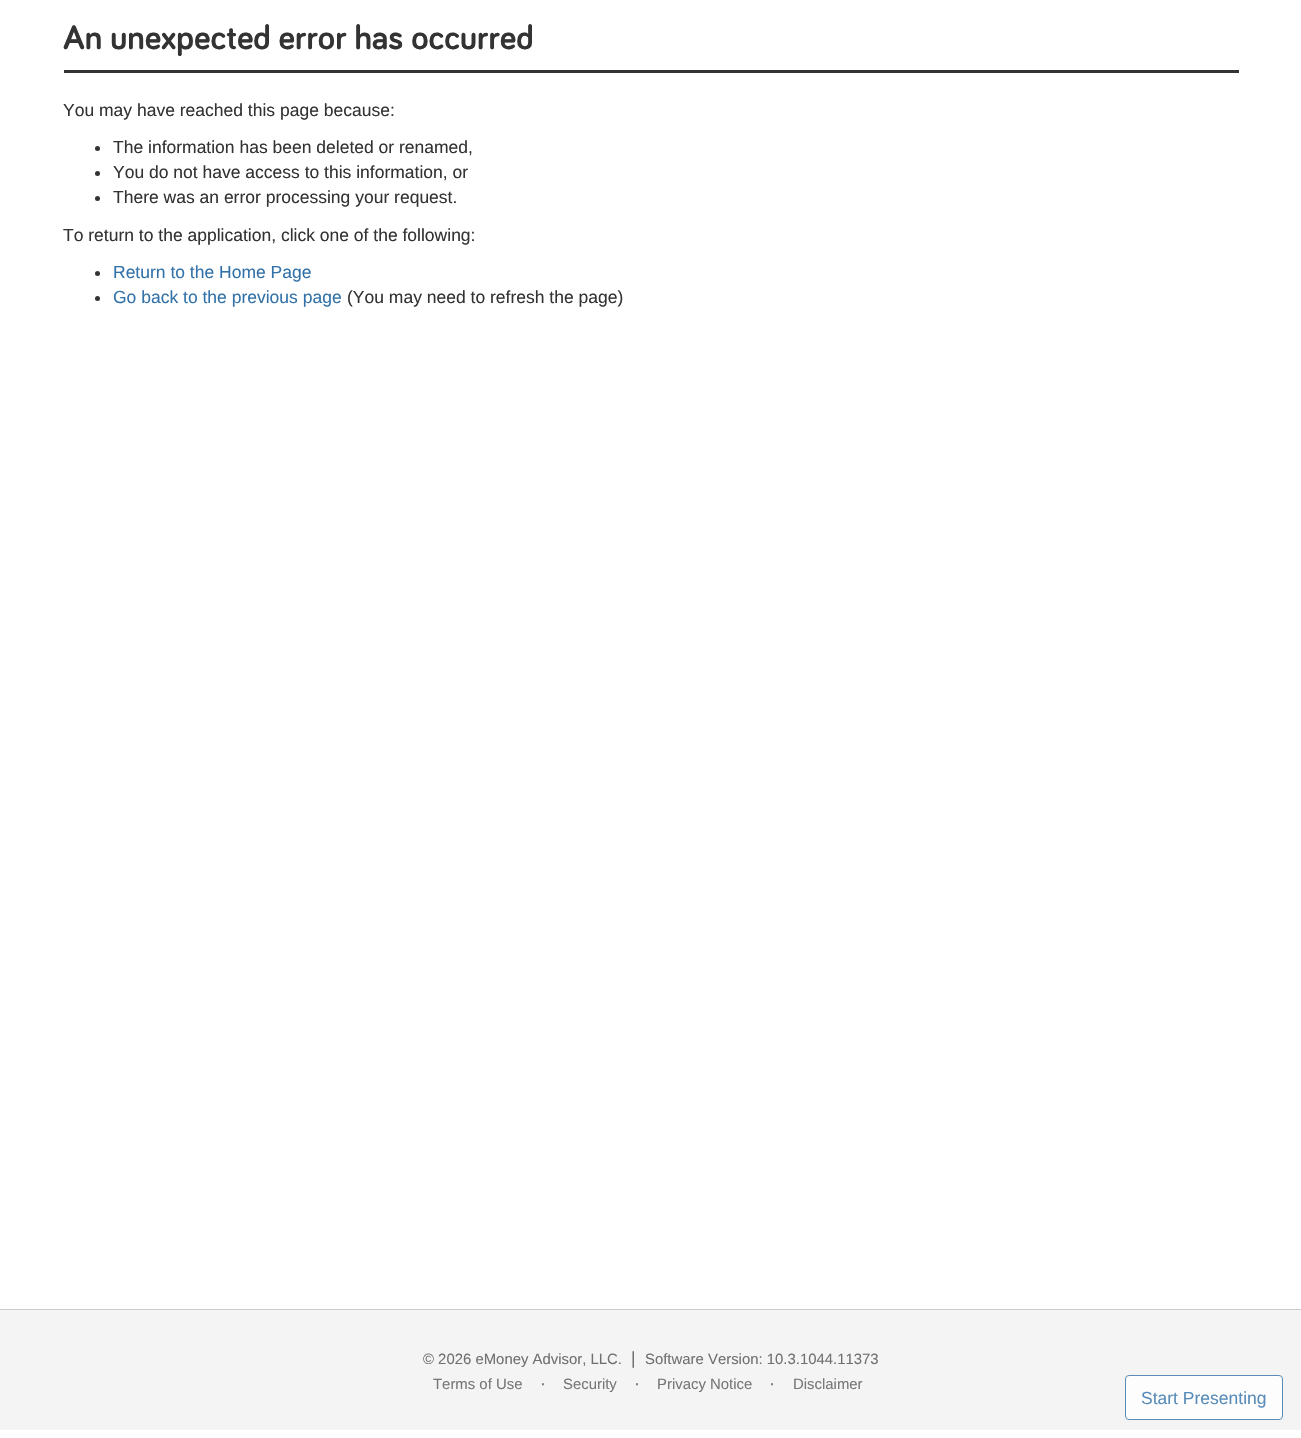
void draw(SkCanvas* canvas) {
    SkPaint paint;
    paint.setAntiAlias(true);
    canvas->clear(0xFFFFFFFF);
    paint.setColor(0xFF333333);
    canvas->drawRect(SkRect::MakeXYWH(64, 70, 1175, 3), paint);
    SkFont font1(fontMgr->matchFamilyStyle("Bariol", SkFontStyle::Bold()), 35);
    font1.setSubpixel(true);
    canvas->drawString("An unexpected error has occurred", 63, 49, font1, paint);
    SkFont font2(fontMgr->matchFamilyStyle("Liberation Sans", SkFontStyle::Normal()), 17.5f);
    font2.setSubpixel(true);
    canvas->drawString("You may have reached this page because:", 63, 116, font2, paint);
    canvas->drawCircle(97.5f, 148.5f, 2.5f, paint);
    canvas->drawString("The information has been deleted or renamed,", 113, 153, font2, paint);
    canvas->drawCircle(97.5f, 173.5f, 2.5f, paint);
    canvas->drawString("You do not have access to this information, or", 113, 178, font2, paint);
    canvas->drawCircle(97.5f, 198.5f, 2.5f, paint);
    canvas->drawString("There was an error processing your request.", 113, 203, font2, paint);
    canvas->drawString("To return to the application, click one of the following:", 63, 241, font2, paint);
    canvas->drawCircle(97.5f, 273.5f, 2.5f, paint);
    paint.setColor(0xFF3272A9);
    canvas->drawString("Return to the Home Page", 113, 278, font2, paint);
    paint.setColor(0xFF333333);
    canvas->drawCircle(97.5f, 298.5f, 2.5f, paint);
    paint.setColor(0xFF3272A9);
    canvas->drawString("Go back to the previous page", 113, 303, font2, paint);
    paint.setColor(0xFF333333);
    canvas->drawString("(You may need to refresh the page)", 347, 303, font2, paint);
    paint.setColor(0xFFF4F4F4);
    canvas->drawRect(SkRect::MakeXYWH(0, 1310, 1301, 120), paint);
    paint.setColor(0xFFCCCCCC);
    canvas->drawRect(SkRect::MakeXYWH(0, 1309, 1301, 1), paint);
    SkFont font3(fontMgr->matchFamilyStyle("Liberation Sans", SkFontStyle::Normal()), 14.9f);
    font3.setSubpixel(true);
    paint.setColor(0xFF707070);
    canvas->drawString("© 2026 eMoney Advisor, LLC.", 423, 1364, font3, paint);
    canvas->drawString("|", 631, 1364, font2, paint);
    canvas->drawString("Software Version: 10.3.1044.11373", 645, 1364, font3, paint);
    paint.setColor(0xFF777777);
    canvas->drawString("Terms of Use", 433, 1389, font3, paint);
    paint.setColor(0xFF707070);
    canvas->drawString("·", 540, 1389, font2, paint);
    paint.setColor(0xFF777777);
    canvas->drawString("Security", 563, 1389, font3, paint);
    paint.setColor(0xFF707070);
    canvas->drawString("·", 634, 1389, font2, paint);
    paint.setColor(0xFF777777);
    canvas->drawString("Privacy Notice", 657, 1389, font3, paint);
    paint.setColor(0xFF707070);
    canvas->drawString("·", 769, 1389, font2, paint);
    paint.setColor(0xFF777777);
    canvas->drawString("Disclaimer", 793, 1389, font3, paint);
    paint.setColor(0xFFFDFDFD);
    canvas->drawRoundRect(SkRect::MakeXYWH(1125.5f, 1375.5f, 157, 44), 3.5f, 3.5f, paint);
    paint.setStyle(SkPaint::kStroke_Style);
    paint.setStrokeWidth(1);
    paint.setColor(0xFF598CB8);
    canvas->drawRoundRect(SkRect::MakeXYWH(1125.5f, 1375.5f, 157, 44), 3.5f, 3.5f, paint);
    paint.setStyle(SkPaint::kFill_Style);
    canvas->drawString("Start Presenting", 1141, 1404, font2, paint);
}
